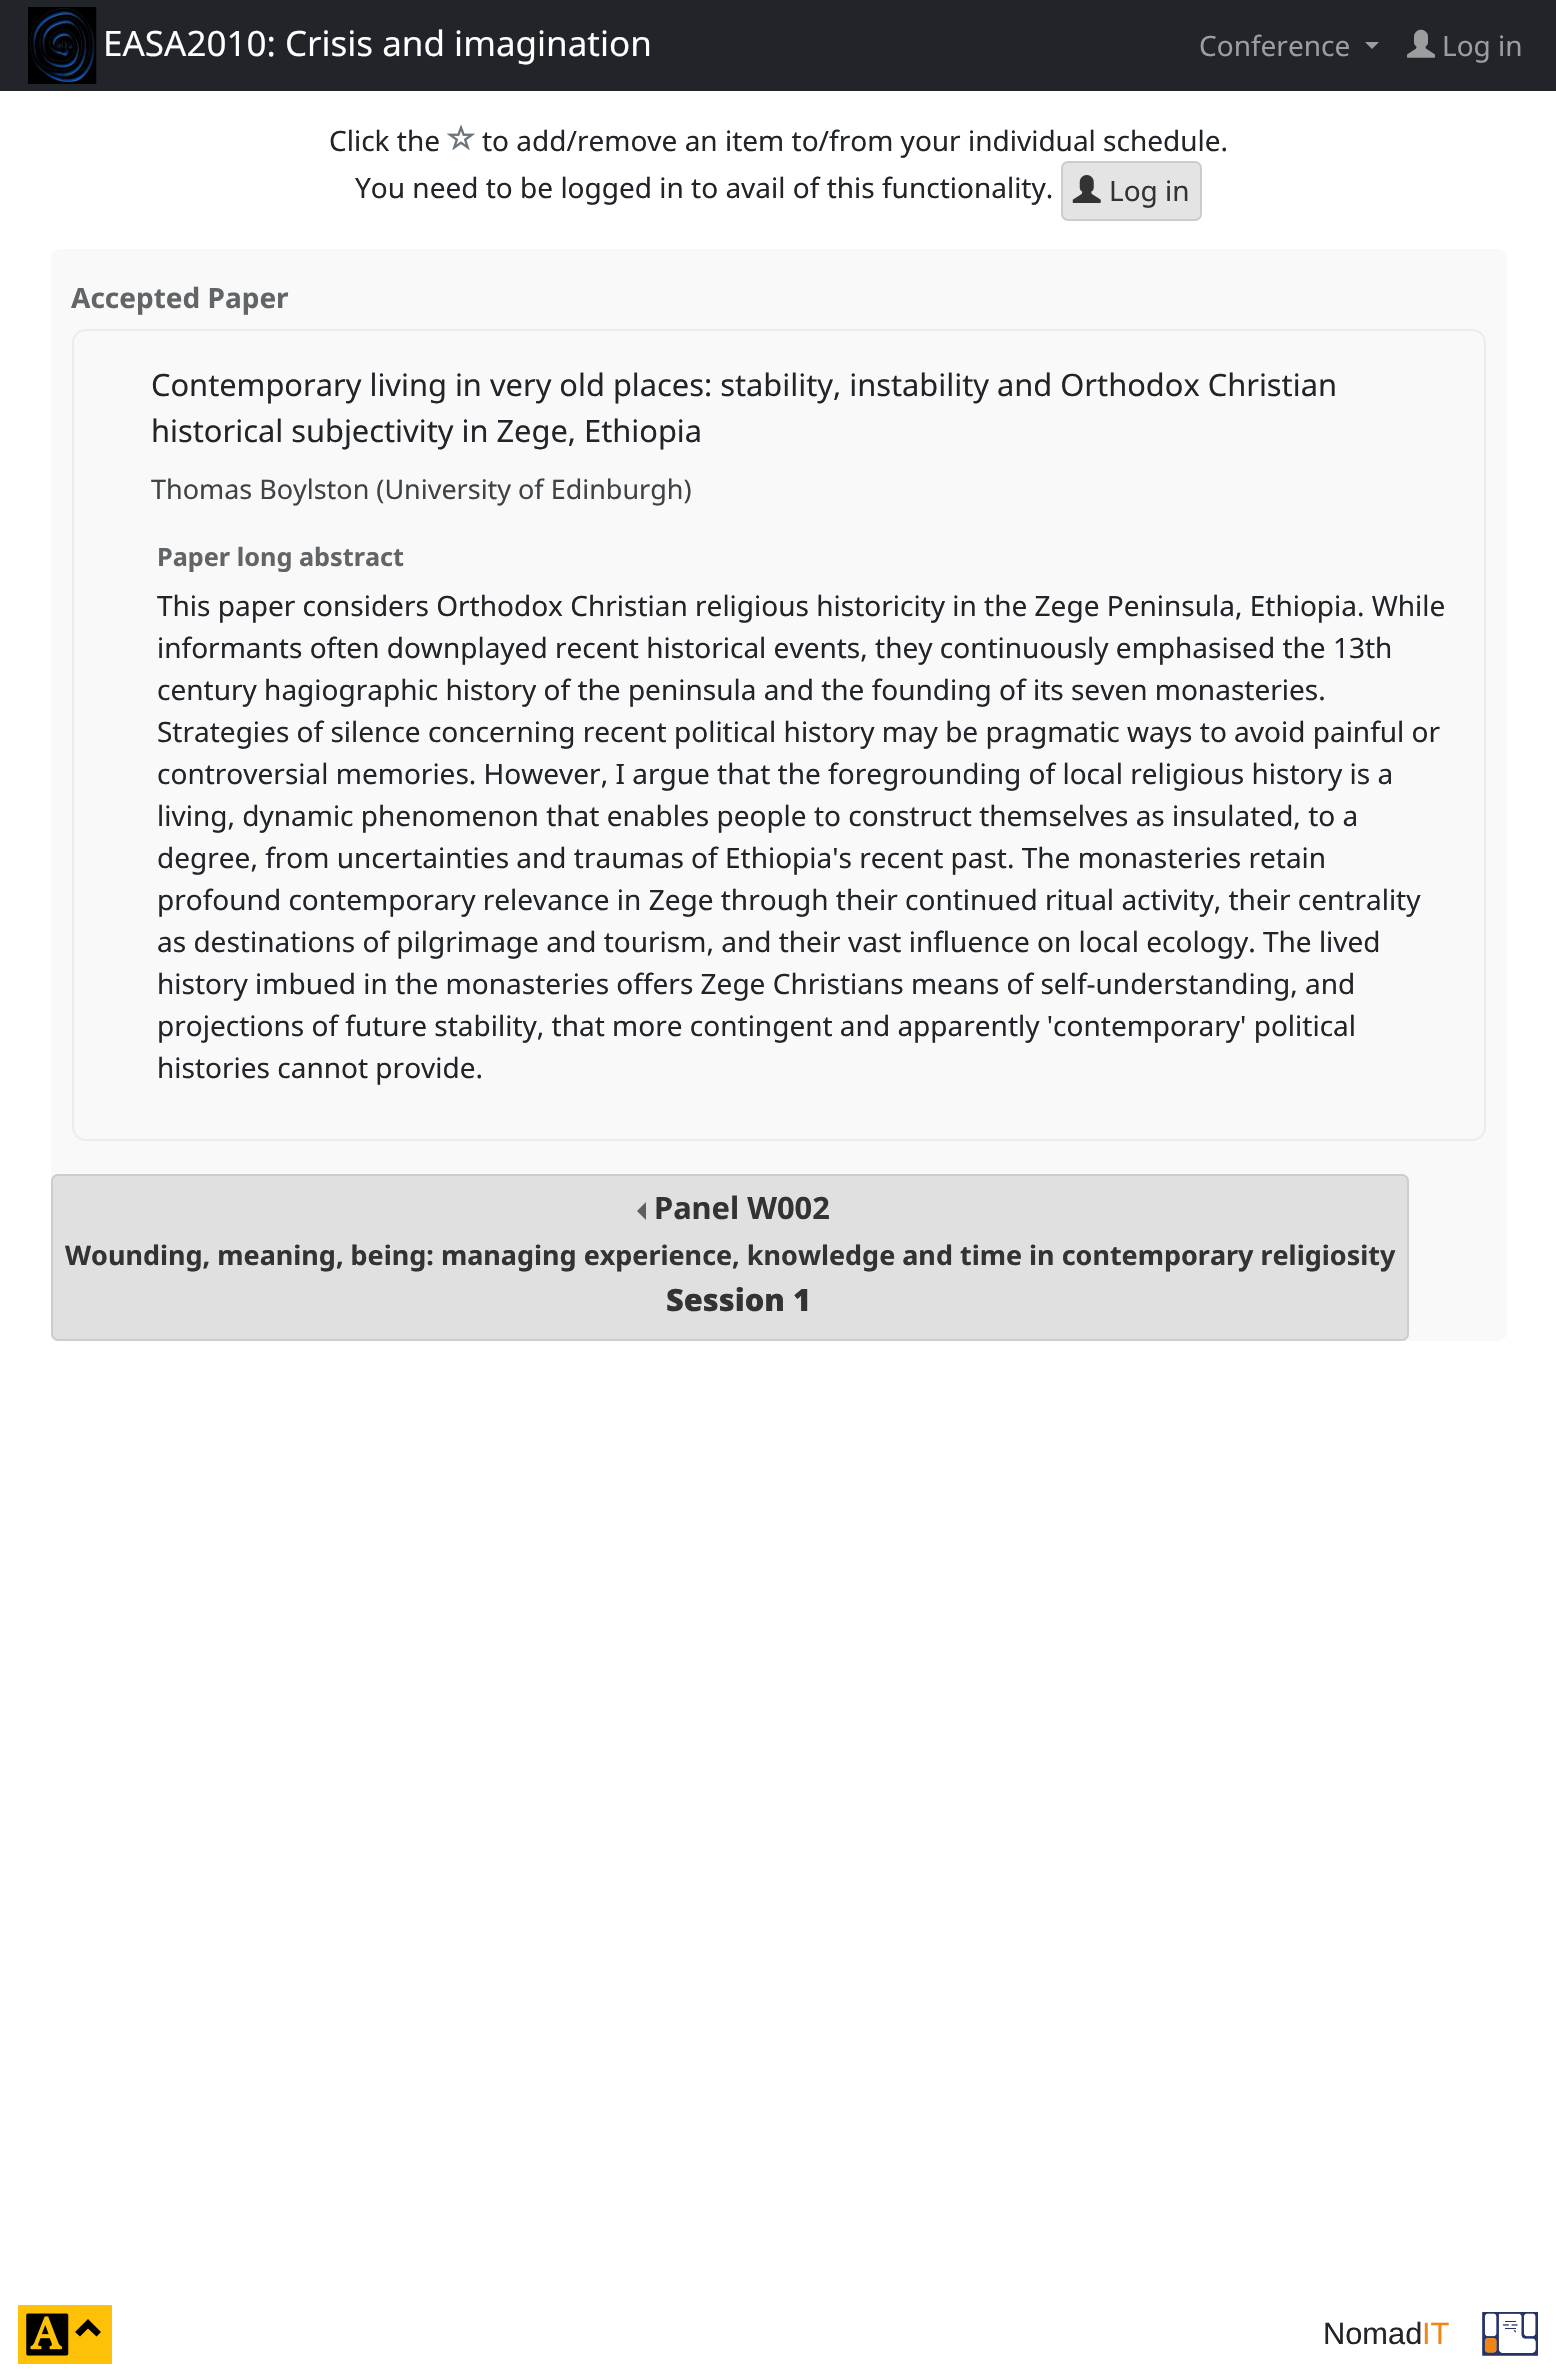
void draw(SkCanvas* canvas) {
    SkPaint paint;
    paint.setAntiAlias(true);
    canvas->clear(0xFFFFFFFF);
    paint.setColor(0xFF212529);
    canvas->drawRect(SkRect::MakeXYWH(0, 0, 1556, 91), paint);
    canvas->drawImageRect(SkImages::DeferredFromEncodedData(SkData::MakeFromFileName("img1.png")), SkRect::MakeXYWH(28, 7, 69, 77), SkSamplingOptions());
    SkFont font1(fontMgr->matchFamilyStyle("Noto Sans", SkFontStyle::Normal()), 35);
    font1.setSubpixel(true);
    paint.setColor(0xFFFFFFFF);
    canvas->drawString("EASA2010: Crisis and imagination", 103, 56, font1, paint);
    SkFont font2(fontMgr->matchFamilyStyle("Noto Sans", SkFontStyle::Normal()), 28);
    font2.setSubpixel(true);
    paint.setColor(0xFF9B9D9F);
    canvas->drawString("Conference", 1199, 56, font2, paint);
    canvas->drawPath(SkPathBuilder().moveTo(1365, 42).lineTo(1379, 42).lineTo(1372, 49).close().detach(), paint);
    canvas->drawImageRect(SkImages::DeferredFromEncodedData(SkData::MakeFromFileName("img2.png")), SkRect::MakeXYWH(1407, 29, 28, 29), SkSamplingOptions());
    canvas->drawString("Log in", 1442, 56, font2, paint);
    paint.setColor(0xFF212529);
    canvas->drawString("Click the", 329, 151, font2, paint);
    canvas->drawImageRect(SkImages::DeferredFromEncodedData(SkData::MakeFromFileName("img3.png")), SkRect::MakeXYWH(447, 125, 28, 25), SkSamplingOptions());
    canvas->drawString("to add/remove an item to/from your individual schedule.", 482, 151, font2, paint);
    canvas->drawString("You need to be logged in to avail of this functionality.", 355, 198, font2, paint);
    paint.setColor(0xFFE4E4E4);
    canvas->drawRoundRect(SkRect::MakeXYWH(1062, 162, 139, 58), 6, 6, paint);
    paint.setStyle(SkPaint::kStroke_Style);
    paint.setStrokeWidth(2);
    paint.setColor(0xFFCCCCCC);
    canvas->drawRoundRect(SkRect::MakeXYWH(1062, 162, 139, 58), 6, 6, paint);
    canvas->drawImageRect(SkImages::DeferredFromEncodedData(SkData::MakeFromFileName("img4.png")), SkRect::MakeXYWH(1072, 175, 29, 28), SkSamplingOptions());
    paint.setStyle(SkPaint::kFill_Style);
    paint.setColor(0xFF333333);
    canvas->drawString("Log in", 1109, 201, font2, paint);
    paint.setColor(0xFFF9F9F9);
    canvas->drawRoundRect(SkRect::MakeXYWH(51, 249, 1456, 1092), 9, 9, paint);
    SkFont font3(fontMgr->matchFamilyStyle("Noto Sans", SkFontStyle::Bold()), 28);
    font3.setSubpixel(true);
    paint.setColor(0xFF626567);
    canvas->drawString("Accepted Paper", 71, 308, font3, paint);
    paint.setStyle(SkPaint::kStroke_Style);
    paint.setColor(0xFFECECEC);
    canvas->drawRoundRect(SkRect::MakeXYWH(73, 330, 1412, 810), 13, 13, paint);
    SkFont font4(fontMgr->matchFamilyStyle("Noto Sans", SkFontStyle::Normal()), 30.8f);
    font4.setSubpixel(true);
    paint.setStyle(SkPaint::kFill_Style);
    paint.setColor(0xFF212529);
    canvas->drawString("Contemporary living in very old places: stability, instability and Orthodox Christian", 151, 396, font4, paint);
    canvas->drawString("historical subjectivity in Zege, Ethiopia", 151, 442, font4, paint);
    SkFont font5(fontMgr->matchFamilyStyle("Noto Sans", SkFontStyle::Normal()), 26.95f);
    font5.setSubpixel(true);
    paint.setColor(0xFF3F4346);
    canvas->drawString("Thomas Boylston (University of Edinburgh)", 151, 499, font5, paint);
    SkFont font6(fontMgr->matchFamilyStyle("Noto Sans", SkFontStyle::Bold()), 25.25f);
    font6.setSubpixel(true);
    paint.setColor(0xFF626567);
    canvas->drawString("Paper long abstract", 157, 566, font6, paint);
    paint.setColor(0xFF212529);
    canvas->drawString("This paper considers Orthodox Christian religious historicity in the Zege Peninsula, Ethiopia. While", 157, 616, font2, paint);
    canvas->drawString("informants often downplayed recent historical events, they continuously emphasised the 13th", 157, 658, font2, paint);
    canvas->drawString("century hagiographic history of the peninsula and the founding of its seven monasteries.", 157, 700, font2, paint);
    canvas->drawString("Strategies of silence concerning recent political history may be pragmatic ways to avoid painful or", 157, 742, font2, paint);
    canvas->drawString("controversial memories. However, I argue that the foregrounding of local religious history is a", 157, 784, font2, paint);
    canvas->drawString("living, dynamic phenomenon that enables people to construct themselves as insulated, to a", 157, 826, font2, paint);
    canvas->drawString("degree, from uncertainties and traumas of Ethiopia's recent past. The monasteries retain", 157, 868, font2, paint);
    canvas->drawString("profound contemporary relevance in Zege through their continued ritual activity, their centrality", 157, 910, font2, paint);
    canvas->drawString("as destinations of pilgrimage and tourism, and their vast influence on local ecology. The lived", 157, 952, font2, paint);
    canvas->drawString("history imbued in the monasteries offers Zege Christians means of self-understanding, and", 157, 994, font2, paint);
    canvas->drawString("projections of future stability, that more contingent and apparently 'contemporary' political", 157, 1036, font2, paint);
    canvas->drawString("histories cannot provide.", 157, 1078, font2, paint);
    paint.setColor(0x80C8C8C8);
    canvas->drawRoundRect(SkRect::MakeXYWH(52, 1175, 1356, 165), 6, 6, paint);
    paint.setStyle(SkPaint::kStroke_Style);
    paint.setColor(0xFFCCCCCC);
    canvas->drawRoundRect(SkRect::MakeXYWH(52, 1175, 1356, 165), 6, 6, paint);
    paint.setStyle(SkPaint::kFill_Style);
    paint.setColor(0xFF5E5E5E);
    canvas->drawPath(SkPathBuilder().moveTo(646, 1202).lineTo(646, 1220).lineTo(637, 1211).close().detach(), paint);
    SkFont font7(fontMgr->matchFamilyStyle("Noto Sans", SkFontStyle::Bold()), 30.8f);
    font7.setSubpixel(true);
    paint.setColor(0xFF333333);
    canvas->drawString("Panel W002", 654, 1219, font7, paint);
    SkFont font8(fontMgr->matchFamilyStyle("Noto Sans", SkFontStyle::Bold()), 26.95f);
    font8.setSubpixel(true);
    canvas->drawString("Wounding, meaning, being: managing experience, knowledge and time in contemporary religiosity", 65, 1265, font8, paint);
    SkFont font9(fontMgr->matchFamilyStyle("Noto Sans", SkFontStyle(900, SkFontStyle::kNormal_Width, SkFontStyle::kUpright_Slant)), 30.8f);
    font9.setSubpixel(true);
    canvas->drawString("Session 1", 666, 1311, font9, paint);
    paint.setColor(0xFFFFC107);
    canvas->drawRoundRect(SkRect::MakeXYWH(16, 2303, 98, 63), 3, 3, paint);
    paint.setStyle(SkPaint::kStroke_Style);
    paint.setStrokeWidth(4);
    paint.setColor(0xFFFFFFFF);
    canvas->drawRoundRect(SkRect::MakeXYWH(16, 2303, 98, 63), 3, 3, paint);
    canvas->drawImageRect(SkImages::DeferredFromEncodedData(SkData::MakeFromFileName("img5.png")), SkRect::MakeXYWH(26, 2313, 43, 43), SkSamplingOptions());
    paint.setStyle(SkPaint::kFill_Style);
    paint.setColor(0xFF000000);
    canvas->drawPath(SkPathBuilder().moveTo(101, 2332).lineTo(96.5f, 2336.5f).lineTo(88, 2328.5f).lineTo(80, 2336.5f).lineTo(75, 2332).lineTo(88, 2319).close().detach(), paint);
    SkFont font10(fontMgr->matchFamilyStyle("Liberation Sans", SkFontStyle::Normal()), 30.8f);
    font10.setSubpixel(true);
    paint.setColor(0xFF212529);
    canvas->drawString("Nomad", 1323, 2344, font10, paint);
    paint.setColor(0xFFF18416);
    canvas->drawString("IT", 1422, 2344, font10, paint);
    canvas->drawImageRect(SkImages::DeferredFromEncodedData(SkData::MakeFromFileName("img6.png")), SkRect::MakeXYWH(1482, 2312, 56, 44), SkSamplingOptions());
}
